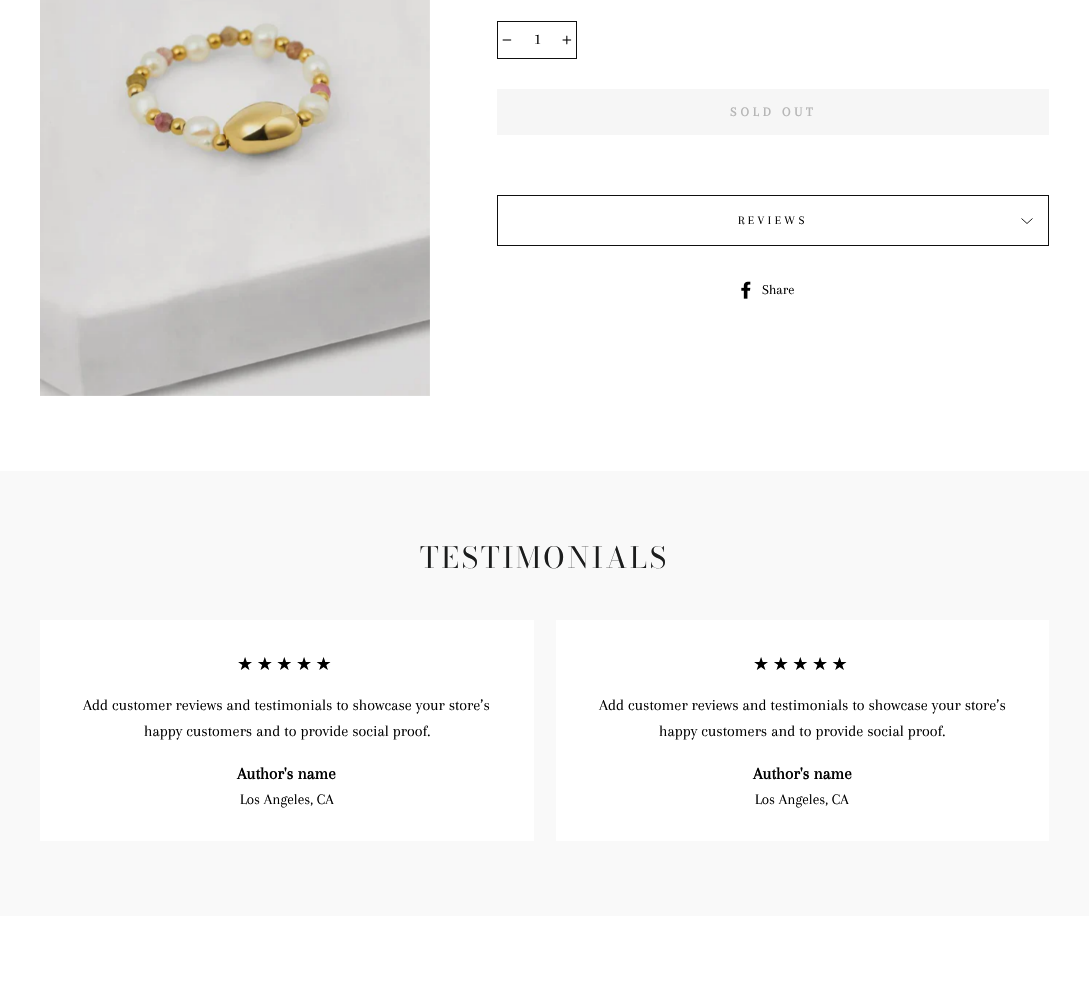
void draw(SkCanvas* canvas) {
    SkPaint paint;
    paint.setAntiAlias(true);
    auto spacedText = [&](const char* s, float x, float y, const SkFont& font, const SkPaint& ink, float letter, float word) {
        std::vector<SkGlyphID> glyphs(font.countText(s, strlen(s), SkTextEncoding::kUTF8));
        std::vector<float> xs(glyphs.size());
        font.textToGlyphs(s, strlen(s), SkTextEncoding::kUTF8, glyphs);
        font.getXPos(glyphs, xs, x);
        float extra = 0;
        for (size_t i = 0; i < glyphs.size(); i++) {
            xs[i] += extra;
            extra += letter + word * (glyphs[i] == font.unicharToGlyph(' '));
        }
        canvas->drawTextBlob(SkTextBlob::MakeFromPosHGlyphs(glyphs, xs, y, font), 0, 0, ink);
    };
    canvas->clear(0xFFFFFFFF);
    canvas->drawImageRect(SkImages::DeferredFromEncodedData(SkData::MakeFromFileName("img1.png")), SkRect::MakeXYWH(40, 0, 390, 396), SkSamplingOptions());
    paint.setStyle(SkPaint::kStroke_Style);
    paint.setStrokeWidth(1);
    paint.setColor(0xFF0F0F0F);
    canvas->drawRect(SkRect::MakeXYWH(497.5f, 21.5f, 79, 37), paint);
    canvas->drawImageRect(SkImages::DeferredFromEncodedData(SkData::MakeFromFileName("img2.png")), SkRect::MakeXYWH(502, 39, 10, 2), SkSamplingOptions());
    SkFont font1(fontMgr->matchFamilyStyle("Arapey", SkFontStyle::Normal()), 16);
    font1.setSubpixel(true);
    paint.setStyle(SkPaint::kFill_Style);
    paint.setColor(0xFF000000);
    canvas->drawString("1", 534, 44, font1, paint);
    canvas->drawImageRect(SkImages::DeferredFromEncodedData(SkData::MakeFromFileName("img3.png")), SkRect::MakeXYWH(562, 35, 10, 10), SkSamplingOptions());
    paint.setColor(0xFFF6F6F6);
    canvas->drawRect(SkRect::MakeXYWH(497, 89, 552, 46), paint);
    SkFont font2(fontMgr->matchFamilyStyle("Arapey", SkFontStyle::Bold()), 13);
    font2.setSubpixel(true);
    paint.setColor(0xFFB6B6B6);
    spacedText("SOLD OUT", 730, 116, font2, paint, 4, 0);
    paint.setColor(0xFF0F0F0F);
    canvas->drawRect(SkRect::MakeXYWH(497, 245, 552, 1), paint);
    canvas->drawRect(SkRect::MakeXYWH(497, 195, 552, 1), paint);
    canvas->drawRect(SkRect::MakeXYWH(1048, 195, 1, 50), paint);
    canvas->drawRect(SkRect::MakeXYWH(497, 195, 1, 50), paint);
    SkFont font3(fontMgr->matchFamilyStyle("Arapey", SkFontStyle::Normal()), 12);
    font3.setSubpixel(true);
    paint.setColor(0xFF000000);
    spacedText("REVIEWS", 738, 224, font3, paint, 3.5f, 0);
    paint.setStyle(SkPaint::kStroke_Style);
    paint.setStrokeWidth(0.9f);
    canvas->drawPath(SkPathBuilder().moveTo(1021.5f, 218.5f).lineTo(1027, 223.5f).lineTo(1032.5f, 218.5f).detach(), paint);
    canvas->drawImageRect(SkImages::DeferredFromEncodedData(SkData::MakeFromFileName("img4.png")), SkRect::MakeXYWH(741, 281, 10, 18), SkSamplingOptions());
    SkFont font4(fontMgr->matchFamilyStyle("Arapey", SkFontStyle::Normal()), 14);
    font4.setSubpixel(true);
    paint.setStyle(SkPaint::kFill_Style);
    canvas->drawString("Share", 762, 294, font4, paint);
    paint.setColor(0xFFF9F9F9);
    canvas->drawRect(SkRect::MakeXYWH(0, 471, 1089, 445), paint);
    SkFont font5(fontMgr->matchFamilyStyle("Bodoni Moda", SkFontStyle::Normal()), 29);
    font5.setSubpixel(true);
    paint.setColor(0xFF1C1D1D);
    spacedText("TESTIMONIALS", 420, 568, font5, paint, 2.9f, 0);
    paint.setColor(0xFFFFFFFF);
    canvas->drawRect(SkRect::MakeXYWH(40, 620, 494, 221), paint);
    SkFont font6(fontMgr->matchFamilyStyle("DejaVu Sans", SkFontStyle::Normal()), 18);
    font6.setSubpixel(true);
    paint.setColor(0xFF000000);
    spacedText("★★★★★", 237, 670, font6, paint, 3.5f, 0);
    canvas->drawString("Add customer reviews and testimonials to showcase your store’s", 83, 710, font1, paint);
    canvas->drawString("happy customers and to provide social proof.", 144, 736, font1, paint);
    SkFont font7(fontMgr->matchFamilyStyle("Arapey", SkFontStyle::Bold()), 17);
    font7.setSubpixel(true);
    canvas->drawString("Author's name", 237, 779, font7, paint);
    SkFont font8(fontMgr->matchFamilyStyle("Arapey", SkFontStyle::Normal()), 15);
    font8.setSubpixel(true);
    canvas->drawString("Los Angeles, CA", 240, 804, font8, paint);
    paint.setColor(0xFFFFFFFF);
    canvas->drawRect(SkRect::MakeXYWH(556, 620, 493, 221), paint);
    paint.setColor(0xFF000000);
    spacedText("★★★★★", 753, 670, font6, paint, 3.5f, 0);
    canvas->drawString("Add customer reviews and testimonials to showcase your store’s", 599, 710, font1, paint);
    canvas->drawString("happy customers and to provide social proof.", 659, 736, font1, paint);
    canvas->drawString("Author's name", 753, 779, font7, paint);
    canvas->drawString("Los Angeles, CA", 755, 804, font8, paint);
}
